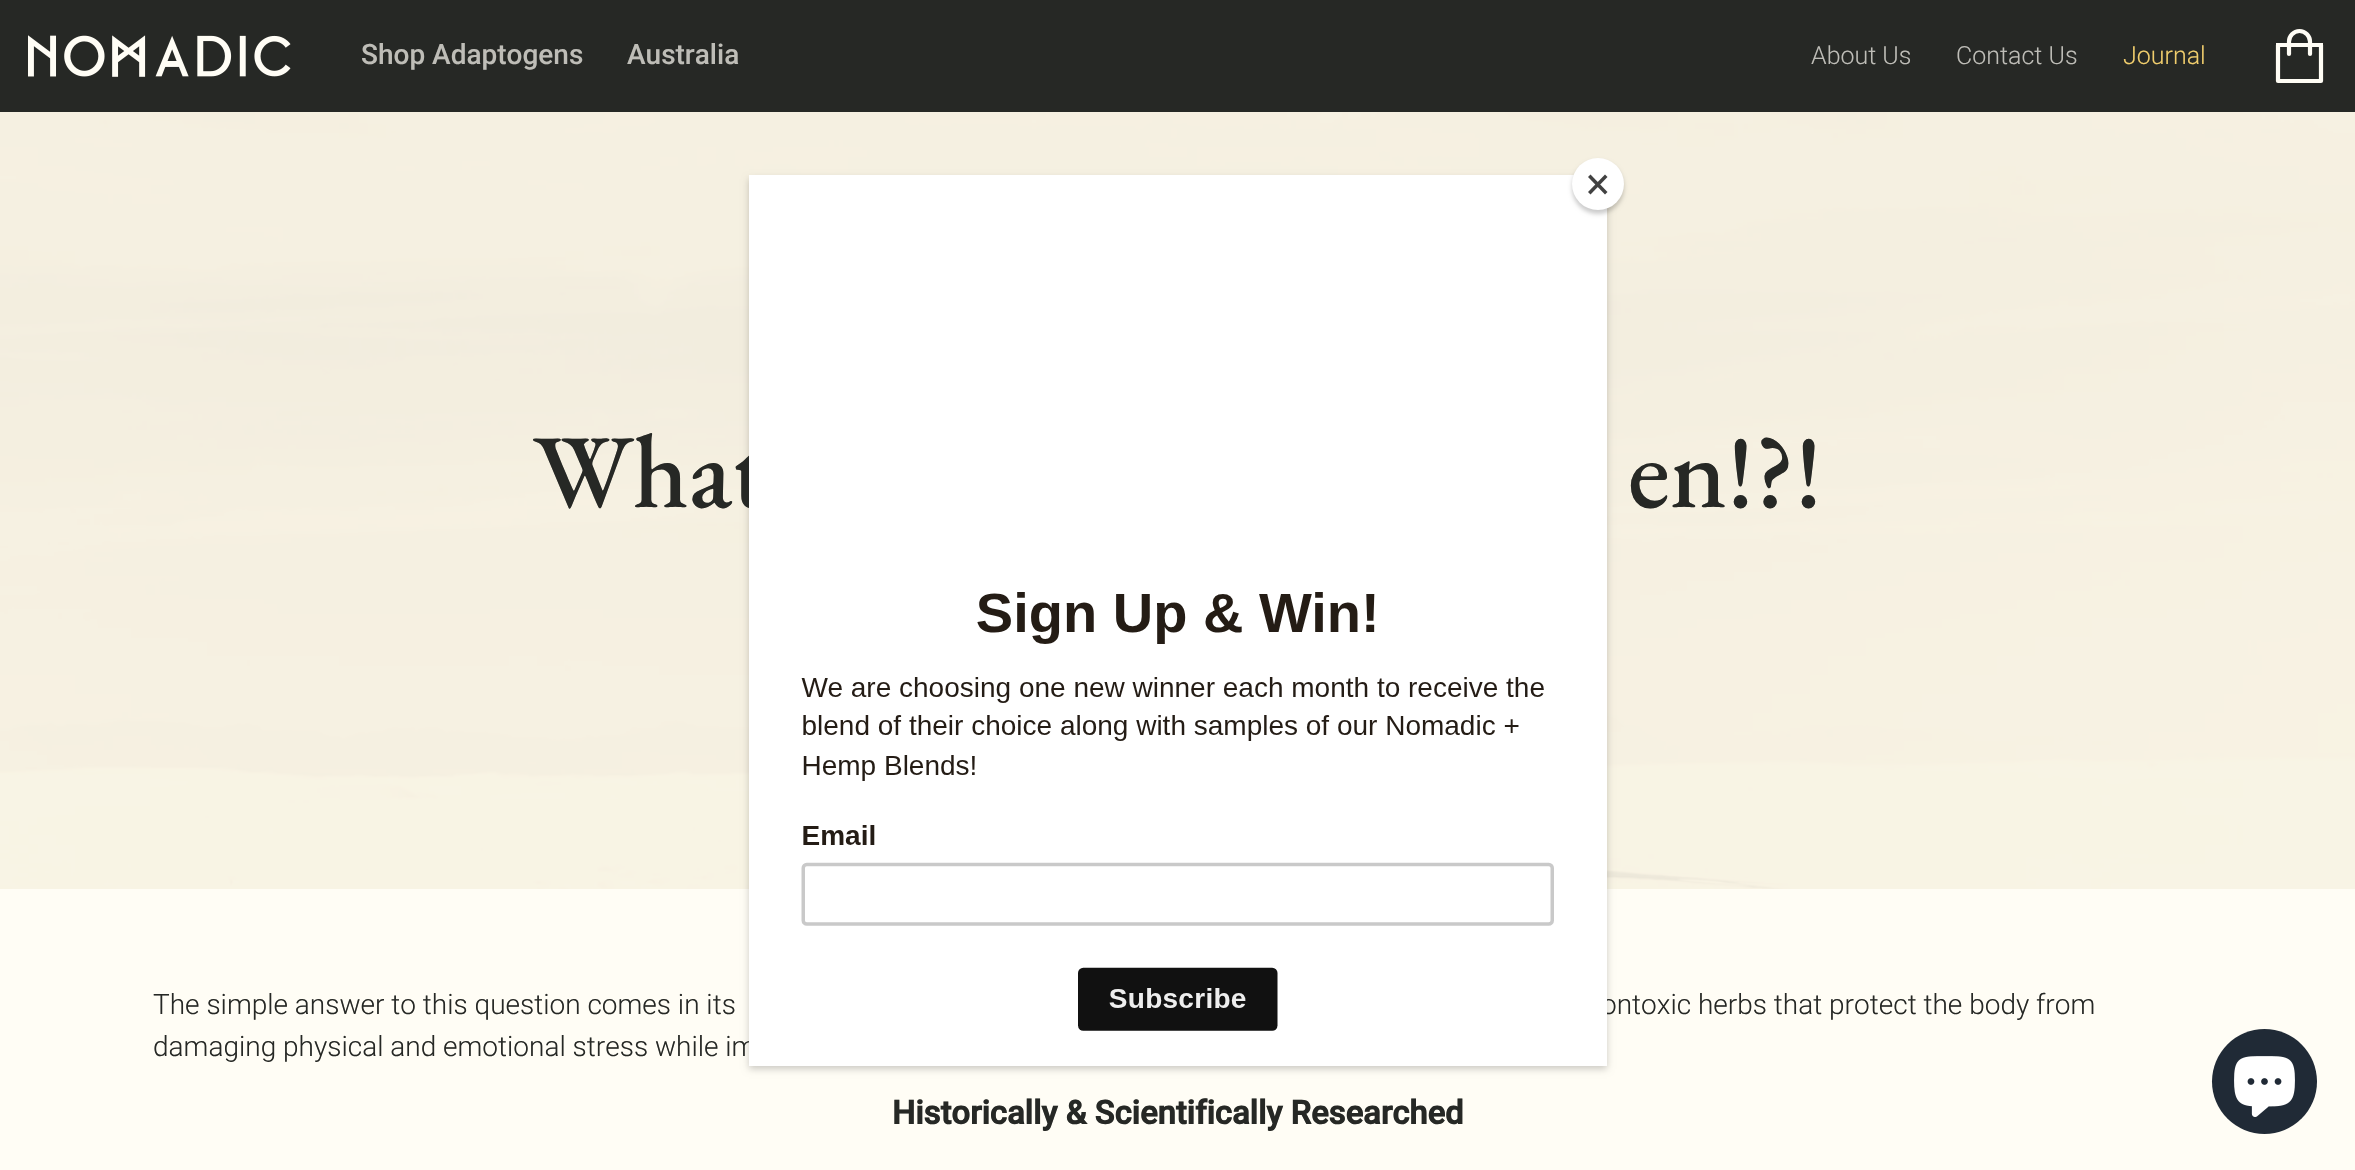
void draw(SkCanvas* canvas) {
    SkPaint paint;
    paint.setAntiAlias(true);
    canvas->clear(0xFFFFFDF5);
    paint.setColor(0xFF262825);
    canvas->drawRect(SkRect::MakeXYWH(0, 0, 2355, 112), paint);
    canvas->drawImageRect(SkImages::DeferredFromEncodedData(SkData::MakeFromFileName("img1.png")), SkRect::MakeXYWH(28, 35, 263, 42), SkSamplingOptions());
    SkFont font1(fontMgr->matchFamilyStyle("Roboto", SkFontStyle(500, SkFontStyle::kNormal_Width, SkFontStyle::kUpright_Slant)), 28);
    font1.setSubpixel(true);
    paint.setColor(0xFFBEBDB7);
    canvas->drawString("Shop Adaptogens", 361, 64, font1, paint);
    canvas->drawString("Australia", 627, 64, font1, paint);
    SkFont font2(fontMgr->matchFamilyStyle("Roboto", SkFontStyle(300, SkFontStyle::kNormal_Width, SkFontStyle::kUpright_Slant)), 25);
    font2.setSubpixel(true);
    canvas->drawString("About Us", 1811, 64, font2, paint);
    canvas->drawString("Contact Us", 1956, 64, font2, paint);
    paint.setColor(0xFFF0CD6C);
    canvas->drawString("Journal", 2123, 64, font2, paint);
    paint.setStyle(SkPaint::kStroke_Style);
    paint.setStrokeWidth(4.2f);
    paint.setStrokeCap(SkPaint::kRound_Cap);
    paint.setStrokeJoin(SkPaint::kRound_Join);
    paint.setColor(0xFFFFFDF5);
    canvas->drawPath(SkPathBuilder().moveTo(2289, 54).lineTo(2289, 41.5f).cubicTo(2289, 36, 2293.5f, 31, 2299.5f, 31).cubicTo(2305.5f, 31, 2310, 36, 2310, 41.5f).lineTo(2310, 54).detach(), paint);
    paint.setStrokeCap(SkPaint::kButt_Cap);
    canvas->drawPath(SkPathBuilder().moveTo(2278, 45).lineTo(2278, 81).lineTo(2321, 81).lineTo(2321, 45).detach(), paint);
    paint.setStyle(SkPaint::kFill_Style);
    canvas->drawRect(SkRect::MakeXYWH(2276, 43, 47, 4), paint);
    paint.setColor(0xFFF7F4E7);
    canvas->drawRect(SkRect::MakeXYWH(0, 112, 2355, 777), paint);
    canvas->drawImageRect(SkImages::DeferredFromEncodedData(SkData::MakeFromFileName("img3.png")), SkRect::MakeXYWH(0, 112, 2355, 777), SkSamplingOptions());
    paint.setColor(0x33000000);
    paint.setMaskFilter(SkMaskFilter::MakeBlur(kNormal_SkBlurStyle, 3.5f));
    canvas->drawRect(SkRect::MakeXYWH(749, 179, 858, 890), paint);
    paint.setMaskFilter(nullptr);
    SkFont font3(fontMgr->matchFamilyStyle("EB Garamond", SkFontStyle(500, SkFontStyle::kNormal_Width, SkFontStyle::kUpright_Slant)), 105);
    font3.setSubpixel(true);
    paint.setColor(0xFF262825);
    canvas->drawString("What", 533, 507, font3, paint);
    SkFont font4(fontMgr->matchFamilyStyle("Roboto", SkFontStyle(300, SkFontStyle::kNormal_Width, SkFontStyle::kUpright_Slant)), 28);
    font4.setSubpixel(true);
    canvas->drawString("ontoxic herbs that protect the body from", 1601, 1014, font4, paint);
    canvas->drawString("damaging physical and emotional stress while im", 153, 1056, font4, paint);
    canvas->drawImageRect(SkImages::DeferredFromEncodedData(SkData::MakeFromFileName("img2.png")), SkRect::MakeXYWH(749, 175, 858, 891), SkSamplingOptions());
    paint.setColor(0x33000000);
    paint.setMaskFilter(SkMaskFilter::MakeBlur(kNormal_SkBlurStyle, 2));
    canvas->drawRoundRect(SkRect::MakeXYWH(1572, 161, 52, 53), 26, 26, paint);
    paint.setMaskFilter(nullptr);
    paint.setColor(0xFFFFFFFF);
    canvas->drawCircle(1598, 184, 26, paint);
    paint.setColor(0xFF414141);
    canvas->drawPath(SkPathBuilder().moveTo(1605, 174.5f).lineTo(1607.5f, 177).lineTo(1590.5f, 194.5f).lineTo(1588, 192).close().detach(), paint);
    canvas->drawPath(SkPathBuilder().moveTo(1588, 177).lineTo(1590.5f, 174.5f).lineTo(1607.5f, 192).lineTo(1605, 194.5f).close().detach(), paint);
    paint.setColor(0xFF262825);
    canvas->drawString("en!?!", 1628, 507, font3, paint);
    canvas->drawString("The simple answer to this question comes in its", 153, 1014, font4, paint);
    SkFont font5(fontMgr->matchFamilyStyle("Roboto", SkFontStyle::Bold()), 32.75f);
    font5.setSubpixel(true);
    canvas->drawString("Historically & Scientifically Researched", 892, 1124, font5, paint);
    paint.setColor(0xFF202A36);
    canvas->drawCircle(2264.5f, 1081.5f, 52.5f, paint);
    canvas->drawImageRect(SkImages::DeferredFromEncodedData(SkData::MakeFromFileName("img4.png")), SkRect::MakeXYWH(2234, 1056, 61, 61), SkSamplingOptions());
}
